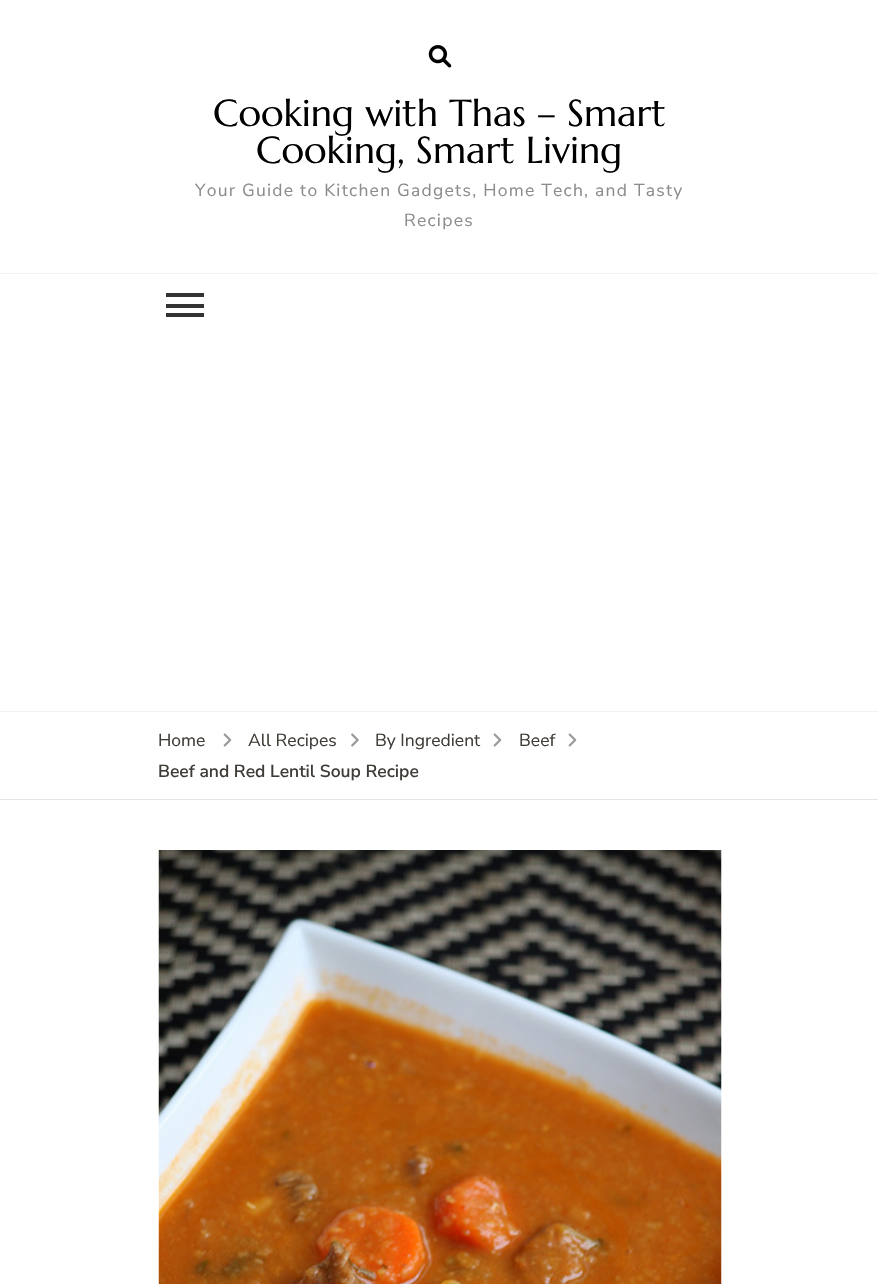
void draw(SkCanvas* canvas) {
    SkPaint paint;
    paint.setAntiAlias(true);
    auto spacedText = [&](const char* s, float x, float y, const SkFont& font, const SkPaint& ink, float letter, float word) {
        std::vector<SkGlyphID> glyphs(font.countText(s, strlen(s), SkTextEncoding::kUTF8));
        std::vector<float> xs(glyphs.size());
        font.textToGlyphs(s, strlen(s), SkTextEncoding::kUTF8, glyphs);
        font.getXPos(glyphs, xs, x);
        float extra = 0;
        for (size_t i = 0; i < glyphs.size(); i++) {
            xs[i] += extra;
            extra += letter + word * (glyphs[i] == font.unicharToGlyph(' '));
        }
        canvas->drawTextBlob(SkTextBlob::MakeFromPosHGlyphs(glyphs, xs, y, font), 0, 0, ink);
    };
    canvas->clear(0xFFFFFFFF);
    paint.setColor(0xFFF2F2F2);
    canvas->drawRect(SkRect::MakeXYWH(0, 711, 878, 1), paint);
    canvas->drawImageRect(SkImages::DeferredFromEncodedData(SkData::MakeFromFileName("img1.png")), SkRect::MakeXYWH(428, 45, 24, 23), SkSamplingOptions());
    SkFont font1(fontMgr->matchFamilyStyle("Marcellus", SkFontStyle::Normal()), 37.5f);
    font1.setSubpixel(true);
    paint.setColor(0xFF000000);
    canvas->drawString("Cooking with Thas – Smart", 213, 126, font1, paint);
    canvas->drawString("Cooking, Smart Living", 256, 163, font1, paint);
    SkFont font2(fontMgr->matchFamilyStyle("Nunito Sans", SkFontStyle::Normal()), 17.5f);
    font2.setSubpixel(true);
    paint.setColor(0xFF8C8C8C);
    spacedText("Your Guide to Kitchen Gadgets, Home Tech, and Tasty", 195, 196, font2, paint, 1.25f, 0);
    spacedText("Recipes", 404, 226, font2, paint, 1.25f, 0);
    paint.setColor(0xFFF2F2F2);
    canvas->drawRect(SkRect::MakeXYWH(0, 273, 878, 1), paint);
    paint.setColor(0xFF333333);
    canvas->drawRect(SkRect::MakeXYWH(166, 293, 38, 4), paint);
    canvas->drawRect(SkRect::MakeXYWH(166, 304, 38, 4), paint);
    canvas->drawRect(SkRect::MakeXYWH(166, 313, 38, 4), paint);
    paint.setColor(0xFFE6E6E6);
    canvas->drawRect(SkRect::MakeXYWH(0, 799, 878, 1), paint);
    paint.setColor(0xFF3F3B36);
    canvas->drawString("Home", 158, 746, font2, paint);
    canvas->drawImageRect(SkImages::DeferredFromEncodedData(SkData::MakeFromFileName("img2.png")), SkRect::MakeXYWH(223, 733, 9, 14), SkSamplingOptions());
    canvas->drawString("All Recipes", 248, 746, font2, paint);
    canvas->drawImageRect(SkImages::DeferredFromEncodedData(SkData::MakeFromFileName("img3.png")), SkRect::MakeXYWH(351, 733, 8, 14), SkSamplingOptions());
    canvas->drawString("By Ingredient", 375, 746, font2, paint);
    canvas->drawImageRect(SkImages::DeferredFromEncodedData(SkData::MakeFromFileName("img2.png")), SkRect::MakeXYWH(493, 733, 9, 14), SkSamplingOptions());
    canvas->drawString("Beef", 519, 746, font2, paint);
    canvas->drawImageRect(SkImages::DeferredFromEncodedData(SkData::MakeFromFileName("img2.png")), SkRect::MakeXYWH(568, 733, 9, 14), SkSamplingOptions());
    SkFont font3(fontMgr->matchFamilyStyle("Nunito Sans", SkFontStyle(600, SkFontStyle::kNormal_Width, SkFontStyle::kUpright_Slant)), 17.5f);
    font3.setSubpixel(true);
    canvas->drawString("Beef and Red Lentil Soup Recipe", 158, 777, font3, paint);
    canvas->drawImageRect(SkImages::DeferredFromEncodedData(SkData::MakeFromFileName("img4.png")), SkRect::MakeXYWH(158, 850, 564, 434), SkSamplingOptions());
}
